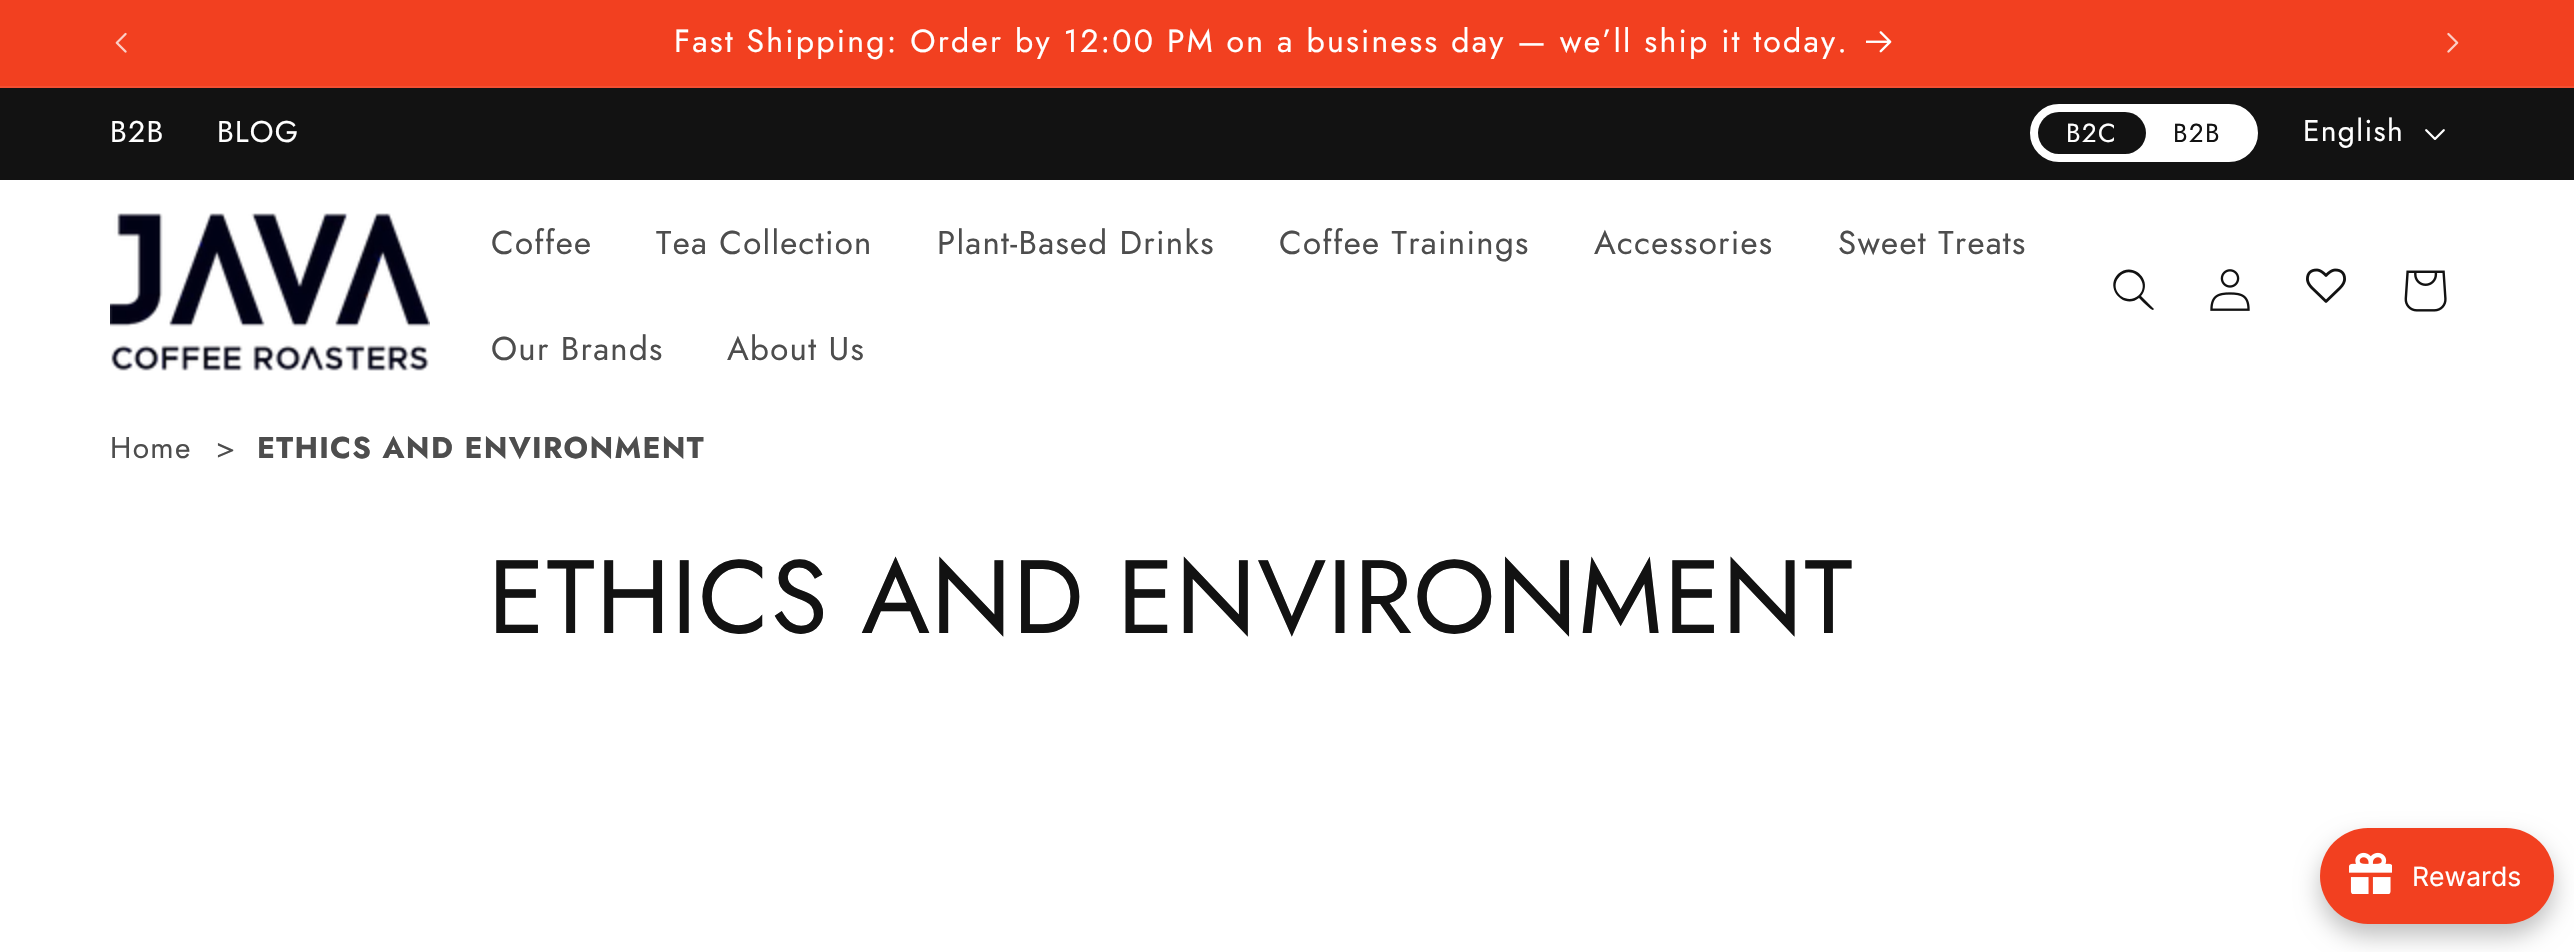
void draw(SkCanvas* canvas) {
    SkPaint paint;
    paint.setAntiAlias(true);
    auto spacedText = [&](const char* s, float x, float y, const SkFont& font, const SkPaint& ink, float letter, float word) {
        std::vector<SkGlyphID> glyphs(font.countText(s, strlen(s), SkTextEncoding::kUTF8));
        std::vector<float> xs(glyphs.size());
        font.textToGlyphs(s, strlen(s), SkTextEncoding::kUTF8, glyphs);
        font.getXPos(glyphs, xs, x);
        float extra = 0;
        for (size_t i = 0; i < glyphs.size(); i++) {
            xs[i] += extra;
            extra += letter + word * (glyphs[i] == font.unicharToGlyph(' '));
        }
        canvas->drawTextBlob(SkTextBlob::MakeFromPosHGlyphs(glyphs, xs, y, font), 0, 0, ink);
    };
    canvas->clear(0xFFFFFFFF);
    paint.setColor(0xFFF24020);
    canvas->drawRect(SkRect::MakeXYWH(0, 0, 2574, 86), paint);
    paint.setColor(0xFFF34F32);
    canvas->drawRect(SkRect::MakeXYWH(0, 86, 2574, 2), paint);
    canvas->drawImageRect(SkImages::DeferredFromEncodedData(SkData::MakeFromFileName("img1.png")), SkRect::MakeXYWH(115, 32, 12, 21), SkSamplingOptions());
    SkFont font1(fontMgr->matchFamilyStyle("Jost", SkFontStyle::Normal()), 32);
    font1.setSubpixel(true);
    paint.setColor(0xFFFFFFFF);
    spacedText("Fast Shipping: Order by 12:00 PM on a business day — we’ll ship it today.", 674, 52, font1, paint, 2.2f, 0);
    canvas->drawImageRect(SkImages::DeferredFromEncodedData(SkData::MakeFromFileName("img2.png")), SkRect::MakeXYWH(1866, 31, 26, 22), SkSamplingOptions());
    canvas->drawImageRect(SkImages::DeferredFromEncodedData(SkData::MakeFromFileName("img3.png")), SkRect::MakeXYWH(2447, 32, 12, 21), SkSamplingOptions());
    paint.setColor(0xFF121212);
    canvas->drawRect(SkRect::MakeXYWH(0, 88, 2574, 92), paint);
    SkFont font2(fontMgr->matchFamilyStyle("Jost", SkFontStyle::Normal()), 30);
    font2.setSubpixel(true);
    paint.setColor(0xFFFFFFFF);
    spacedText("B2B", 110, 142, font2, paint, 1.3f, 0);
    spacedText("BLOG", 217, 142, font2, paint, 1.3f, 0);
    canvas->drawRoundRect(SkRect::MakeXYWH(2031, 105, 226, 56), 28, 28, paint);
    paint.setStyle(SkPaint::kStroke_Style);
    paint.setStrokeWidth(2);
    canvas->drawRoundRect(SkRect::MakeXYWH(2031, 105, 226, 56), 28, 28, paint);
    paint.setStyle(SkPaint::kFill_Style);
    paint.setColor(0xFF121212);
    canvas->drawRoundRect(SkRect::MakeXYWH(2038, 112, 108, 42), 21, 21, paint);
    SkFont font3(fontMgr->matchFamilyStyle("Jost", SkFontStyle::Normal()), 26);
    font3.setSubpixel(true);
    paint.setColor(0xFFFFFFFF);
    spacedText("B2C", 2066, 142, font3, paint, 1.3f, 0);
    paint.setColor(0xFF121212);
    spacedText("B2B", 2173, 142, font3, paint, 1.3f, 0);
    paint.setColor(0xFFFFFFFF);
    spacedText("English", 2303, 141, font2, paint, 1.3f, 0);
    canvas->drawImageRect(SkImages::DeferredFromEncodedData(SkData::MakeFromFileName("img4.png")), SkRect::MakeXYWH(2425, 129, 20, 11), SkSamplingOptions());
    canvas->drawImageRect(SkImages::DeferredFromEncodedData(SkData::MakeFromFileName("img5.png")), SkRect::MakeXYWH(110, 213, 320, 158), SkSamplingOptions());
    SkFont font4(fontMgr->matchFamilyStyle("Jost", SkFontStyle::Normal()), 33);
    font4.setSubpixel(true);
    paint.setColor(0xFF4D4D4D);
    spacedText("Coffee", 491, 254, font4, paint, 1.3f, 0);
    spacedText("Tea Collection", 656, 254, font4, paint, 1.3f, 0);
    spacedText("Plant-Based Drinks", 937, 254, font4, paint, 1.3f, 0);
    spacedText("Coffee Trainings", 1279, 254, font4, paint, 1.3f, 0);
    spacedText("Accessories", 1594, 254, font4, paint, 1.3f, 0);
    spacedText("Sweet Treats", 1838, 254, font4, paint, 1.3f, 0);
    spacedText("Our Brands", 491, 360, font4, paint, 1.3f, 0);
    spacedText("About Us", 727, 360, font4, paint, 1.3f, 0);
    paint.setColor(0xFF121212);
    canvas->drawPath(SkPathBuilder(SkPathFillType::kEvenOdd).moveTo(2139, 295).cubicTo(2126, 307, 2107, 289, 2120, 276).cubicTo(2132, 264, 2151, 283, 2139, 295).close().moveTo(2139, 298).cubicTo(2124, 310, 2104, 288, 2118, 274).cubicTo(2133, 260, 2154, 281, 2141, 296).lineTo(2154, 309).lineTo(2153, 310).cubicTo(2152, 311, 2141, 300, 2139, 298).close().detach(), paint);
    canvas->drawImageRect(SkImages::DeferredFromEncodedData(SkData::MakeFromFileName("img6.png")), SkRect::MakeXYWH(2210, 269, 40, 42), SkSamplingOptions());
    canvas->drawImageRect(SkImages::DeferredFromEncodedData(SkData::MakeFromFileName("img7.png")), SkRect::MakeXYWH(2306, 268, 40, 35), SkSamplingOptions());
    canvas->drawImageRect(SkImages::DeferredFromEncodedData(SkData::MakeFromFileName("img8.png")), SkRect::MakeXYWH(2404, 270, 43, 42), SkSamplingOptions());
    SkFont font5(fontMgr->matchFamilyStyle("Jost", SkFontStyle::Normal()), 29.9f);
    font5.setSubpixel(true);
    paint.setColor(0xFF4D4D4D);
    spacedText("Home", 110, 458, font5, paint, 1.3f, 0);
    spacedText(">", 216, 458, font5, paint, 1.3f, 0);
    SkFont font6(fontMgr->matchFamilyStyle("Jost", SkFontStyle::Bold()), 29.9f);
    font6.setSubpixel(true);
    spacedText("ETHICS AND ENVIRONMENT", 257, 458, font6, paint, 1.3f, 0);
    SkFont font7(fontMgr->matchFamilyStyle("Jost", SkFontStyle::Normal()), 104);
    font7.setSubpixel(true);
    paint.setColor(0xFF121212);
    spacedText("ETHICS AND ENVIRONMENT", 488, 633, font7, paint, 1.2f, 0);
    paint.setColor(0x40000000);
    paint.setMaskFilter(SkMaskFilter::MakeBlur(kNormal_SkBlurStyle, 12));
    canvas->drawRoundRect(SkRect::MakeXYWH(2320, 840, 234, 96), 48, 48, paint);
    paint.setMaskFilter(nullptr);
    paint.setColor(0xFFF24020);
    canvas->drawRoundRect(SkRect::MakeXYWH(2320, 828, 234, 96), 48, 48, paint);
    canvas->drawImageRect(SkImages::DeferredFromEncodedData(SkData::MakeFromFileName("img9.png")), SkRect::MakeXYWH(2349, 852, 43, 42), SkSamplingOptions());
    SkFont font8(fontMgr->matchFamilyStyle("Inter", SkFontStyle::Normal()), 26.5f);
    font8.setSubpixel(true);
    paint.setColor(0xFFFFFFFF);
    canvas->drawString("Rewards", 2412, 886, font8, paint);
}
